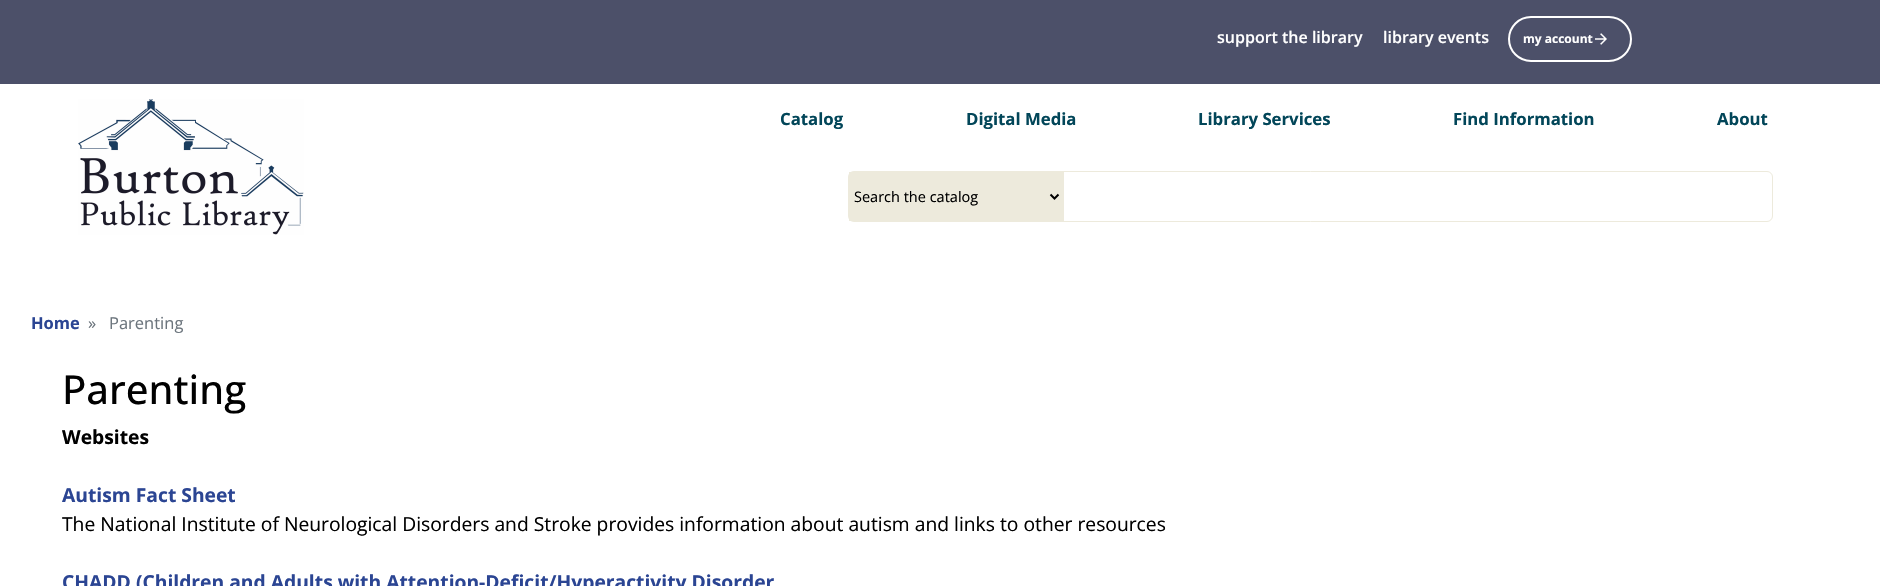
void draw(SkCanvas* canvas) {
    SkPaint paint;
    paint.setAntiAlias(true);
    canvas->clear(0xFFFFFFFF);
    paint.setColor(0xFF4C5069);
    canvas->drawRect(SkRect::MakeXYWH(0, 0, 1880, 84), paint);
    SkFont font1(fontMgr->matchFamilyStyle("Open Sans", SkFontStyle(600, SkFontStyle::kNormal_Width, SkFontStyle::kUpright_Slant)), 16);
    font1.setSubpixel(true);
    paint.setColor(0xFFFFFFFF);
    canvas->drawString("support the library", 1217, 43, font1, paint);
    canvas->drawString("library events", 1383, 43, font1, paint);
    paint.setStyle(SkPaint::kStroke_Style);
    paint.setStrokeWidth(2);
    canvas->drawRoundRect(SkRect::MakeXYWH(1509, 17, 122, 44), 22, 22, paint);
    SkFont font2(fontMgr->matchFamilyStyle("Open Sans", SkFontStyle::Bold()), 12);
    font2.setSubpixel(true);
    paint.setStyle(SkPaint::kFill_Style);
    canvas->drawString("my account", 1523, 43, font2, paint);
    canvas->drawImageRect(SkImages::DeferredFromEncodedData(SkData::MakeFromFileName("img1.png")), SkRect::MakeXYWH(1595, 33, 12, 12), SkSamplingOptions());
    canvas->drawImageRect(SkImages::DeferredFromEncodedData(SkData::MakeFromFileName("img2.png")), SkRect::MakeXYWH(78, 99, 226, 136), SkSamplingOptions());
    SkFont font3(fontMgr->matchFamilyStyle("Open Sans", SkFontStyle::Bold()), 16.75f);
    font3.setSubpixel(true);
    paint.setColor(0xFF024659);
    canvas->drawString("Catalog", 780, 125, font3, paint);
    canvas->drawString("Digital Media", 966, 125, font3, paint);
    canvas->drawString("Library Services", 1198, 125, font3, paint);
    canvas->drawString("Find Information", 1453, 125, font3, paint);
    canvas->drawString("About", 1717, 125, font3, paint);
    paint.setStyle(SkPaint::kStroke_Style);
    paint.setStrokeWidth(1);
    paint.setColor(0xFFEDEADC);
    canvas->drawRoundRect(SkRect::MakeXYWH(848.5f, 171.5f, 924, 50), 5.5f, 5.5f, paint);
    paint.setStyle(SkPaint::kFill_Style);
    canvas->drawRect(SkRect::MakeXYWH(849, 172, 215, 49), paint);
    paint.setStyle(SkPaint::kStroke_Style);
    paint.setStrokeWidth(2);
    paint.setColor(0xFF000000);
    canvas->drawPath(SkPathBuilder().moveTo(1050.5f, 194.5f).lineTo(1054.5f, 198.5f).lineTo(1058.5f, 194.5f).detach(), paint);
    SkFont font4(fontMgr->matchFamilyStyle("Open Sans", SkFontStyle::Normal()), 14.5f);
    font4.setSubpixel(true);
    paint.setStyle(SkPaint::kFill_Style);
    canvas->drawString("Search the catalog", 854, 202, font4, paint);
    SkFont font5(fontMgr->matchFamilyStyle("Open Sans", SkFontStyle::Bold()), 16.5f);
    font5.setSubpixel(true);
    paint.setColor(0xFF2B4593);
    canvas->drawString("Home", 31, 329, font5, paint);
    SkFont font6(fontMgr->matchFamilyStyle("Open Sans", SkFontStyle::Normal()), 16.5f);
    font6.setSubpixel(true);
    paint.setColor(0xFF6C757D);
    canvas->drawString("»", 88, 329, font6, paint);
    canvas->drawString("Parenting", 109, 329, font6, paint);
    SkFont font7(fontMgr->matchFamilyStyle("Open Sans", SkFontStyle(500, SkFontStyle::kNormal_Width, SkFontStyle::kUpright_Slant)), 40);
    font7.setSubpixel(true);
    paint.setColor(0xFF000000);
    canvas->drawString("Parenting", 62, 404, font7, paint);
    SkFont font8(fontMgr->matchFamilyStyle("Open Sans", SkFontStyle::Bold()), 19.28f);
    font8.setSubpixel(true);
    canvas->drawString("Websites", 62, 444, font8, paint);
    paint.setColor(0xFF2B4593);
    canvas->drawString("Autism Fact Sheet", 62, 502, font8, paint);
    SkFont font9(fontMgr->matchFamilyStyle("Open Sans", SkFontStyle::Normal()), 19.28f);
    font9.setSubpixel(true);
    paint.setColor(0xFF000000);
    canvas->drawString("The National Institute of Neurological Disorders and Stroke provides information about autism and links to other resources", 62, 531, font9, paint);
    paint.setColor(0xFF2B4593);
    canvas->drawString("CHADD (Children and Adults with Attention-Deficit/Hyperactivity Disorder", 62, 589, font8, paint);
}
